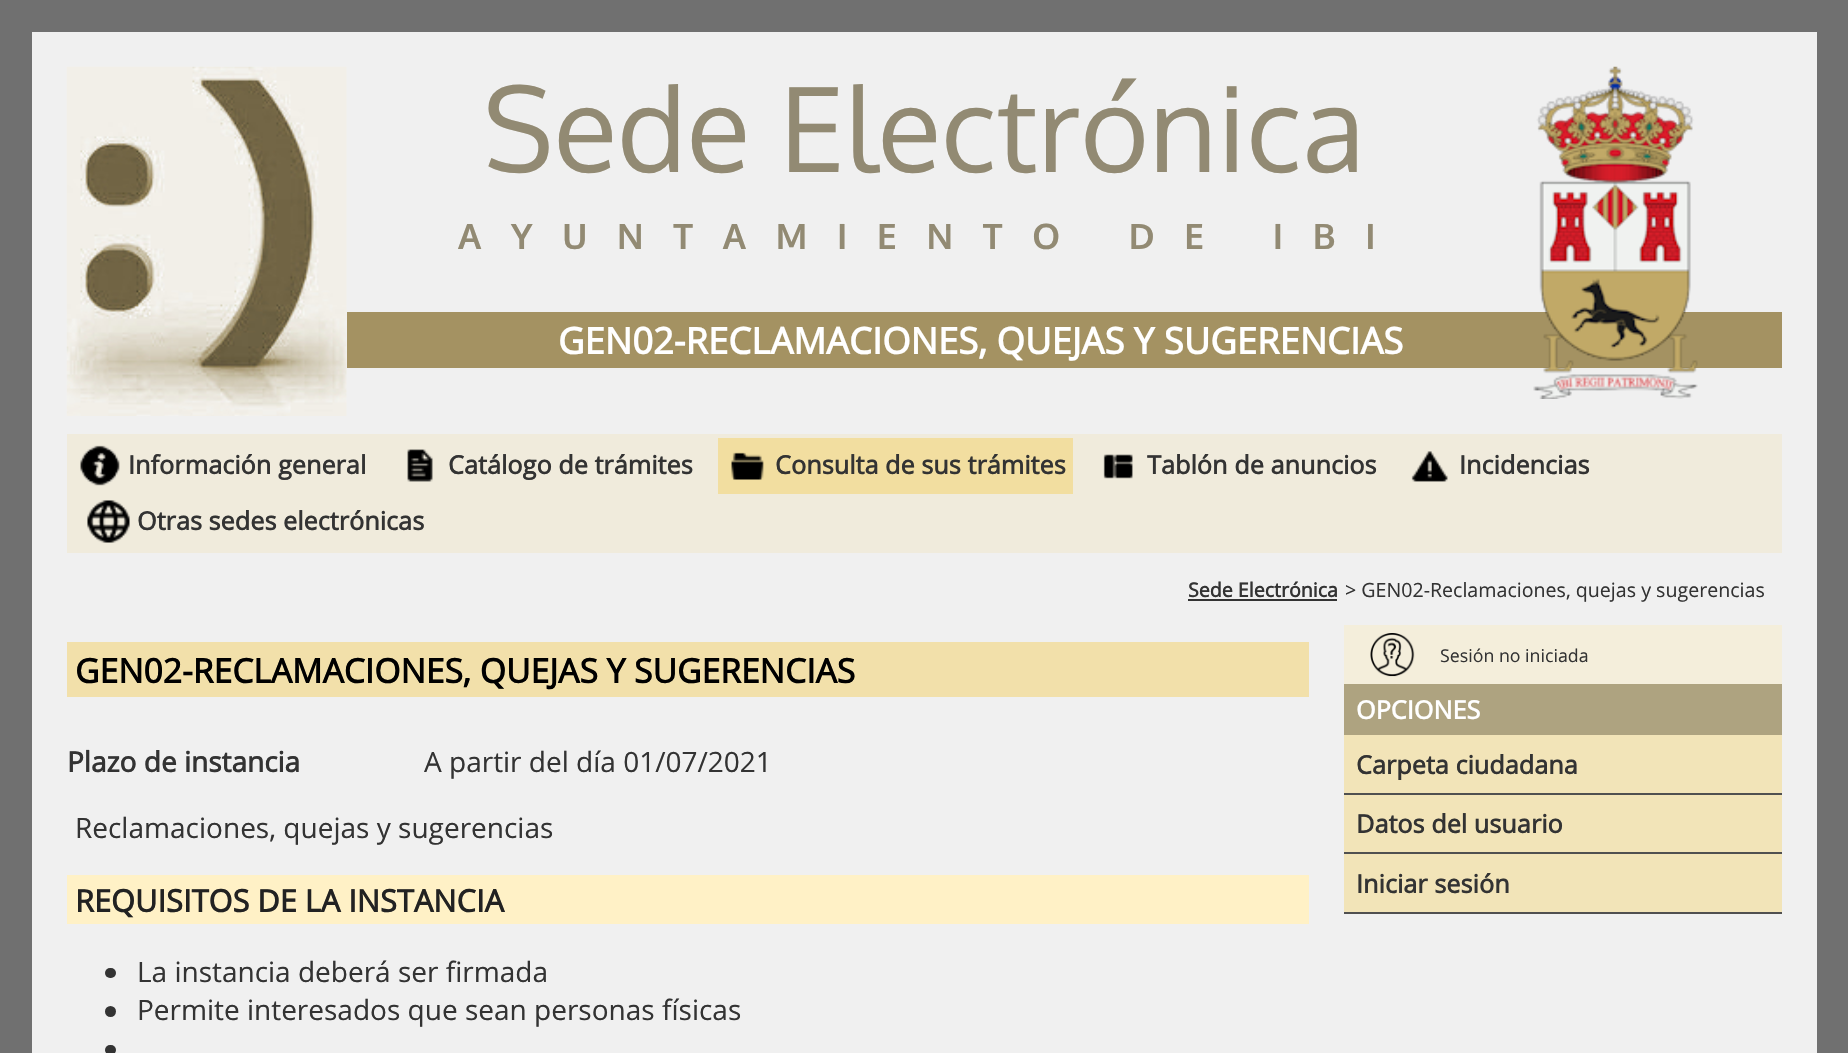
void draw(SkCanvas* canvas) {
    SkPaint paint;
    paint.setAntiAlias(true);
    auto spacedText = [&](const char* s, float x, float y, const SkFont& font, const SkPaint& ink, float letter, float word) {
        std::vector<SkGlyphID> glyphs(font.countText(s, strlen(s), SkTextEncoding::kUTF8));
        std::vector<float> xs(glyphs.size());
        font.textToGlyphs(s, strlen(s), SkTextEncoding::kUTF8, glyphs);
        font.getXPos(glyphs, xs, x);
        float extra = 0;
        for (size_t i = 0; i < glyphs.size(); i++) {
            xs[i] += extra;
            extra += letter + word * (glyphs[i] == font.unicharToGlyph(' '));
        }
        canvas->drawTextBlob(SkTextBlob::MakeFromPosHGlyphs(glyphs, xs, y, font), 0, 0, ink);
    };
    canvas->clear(0xFF707070);
    paint.setColor(0xFFF0F0F0);
    canvas->drawRect(SkRect::MakeXYWH(32, 32, 1785, 1021), paint);
    canvas->drawImageRect(SkImages::DeferredFromEncodedData(SkData::MakeFromFileName("img1.png")), SkRect::MakeXYWH(66, 66, 281, 350), SkSamplingOptions());
    SkFont font1(fontMgr->matchFamilyStyle("Oxygen", SkFontStyle::Normal()), 117.5f);
    font1.setSubpixel(true);
    paint.setColor(0xFF928A73);
    canvas->drawString("Sede Electrónica", 483, 172, font1, paint);
    paint.setColor(0xFFA49262);
    canvas->drawRect(SkRect::MakeXYWH(347, 312, 1435, 56), paint);
    canvas->drawImageRect(SkImages::DeferredFromEncodedData(SkData::MakeFromFileName("img2.png")), SkRect::MakeXYWH(1533, 66, 165, 333), SkSamplingOptions());
    SkFont font2(fontMgr->matchFamilyStyle("Oxygen", SkFontStyle::Bold()), 35);
    font2.setSubpixel(true);
    paint.setColor(0xFF928A73);
    spacedText("AYUNTAMIENTO DE IBI", 458, 249, font2, paint, 29.75f, 0);
    SkFont font3(fontMgr->matchFamilyStyle("Open Sans", SkFontStyle::Bold()), 36.4f);
    font3.setSubpixel(true);
    paint.setColor(0xFFFFFFFF);
    canvas->drawString("GEN02-RECLAMACIONES, QUEJAS Y SUGERENCIAS", 558, 354, font3, paint);
    paint.setColor(0xFFF0EBDC);
    canvas->drawRect(SkRect::MakeXYWH(67, 434, 1715, 119), paint);
    canvas->drawImageRect(SkImages::DeferredFromEncodedData(SkData::MakeFromFileName("img3.png")), SkRect::MakeXYWH(80, 445, 40, 41), SkSamplingOptions());
    SkFont font4(fontMgr->matchFamilyStyle("Open Sans", SkFontStyle::Bold()), 25.25f);
    font4.setSubpixel(true);
    paint.setColor(0xFF333333);
    canvas->drawString("Información general", 128, 474, font4, paint);
    canvas->drawImageRect(SkImages::DeferredFromEncodedData(SkData::MakeFromFileName("img4.png")), SkRect::MakeXYWH(407, 449, 26, 33), SkSamplingOptions());
    canvas->drawString("Catálogo de trámites", 448, 474, font4, paint);
    paint.setColor(0xFFF2DEA0);
    canvas->drawRect(SkRect::MakeXYWH(718, 438, 355, 56), paint);
    canvas->drawImageRect(SkImages::DeferredFromEncodedData(SkData::MakeFromFileName("img5.png")), SkRect::MakeXYWH(731, 452, 33, 28), SkSamplingOptions());
    paint.setColor(0xFF333333);
    canvas->drawString("Consulta de sus trámites", 775, 474, font4, paint);
    canvas->drawImageRect(SkImages::DeferredFromEncodedData(SkData::MakeFromFileName("img6.png")), SkRect::MakeXYWH(1103, 454, 30, 25), SkSamplingOptions());
    canvas->drawString("Tablón de anuncios", 1147, 474, font4, paint);
    canvas->drawImageRect(SkImages::DeferredFromEncodedData(SkData::MakeFromFileName("img7.png")), SkRect::MakeXYWH(1411, 451, 37, 31), SkSamplingOptions());
    canvas->drawString("Incidencias", 1459, 474, font4, paint);
    canvas->drawImageRect(SkImages::DeferredFromEncodedData(SkData::MakeFromFileName("img8.png")), SkRect::MakeXYWH(87, 500, 43, 43), SkSamplingOptions());
    canvas->drawString("Otras sedes electrónicas", 137, 530, font4, paint);
    SkFont font5(fontMgr->matchFamilyStyle("Open Sans", SkFontStyle::Bold()), 19.6f);
    font5.setSubpixel(true);
    canvas->drawString("Sede Electrónica", 1188, 597, font5, paint);
    canvas->drawRect(SkRect::MakeXYWH(1188, 599, 149, 2), paint);
    SkFont font6(fontMgr->matchFamilyStyle("Open Sans", SkFontStyle::Normal()), 19.6f);
    font6.setSubpixel(true);
    canvas->drawString("> GEN02-Reclamaciones, quejas y sugerencias", 1345, 597, font6, paint);
    paint.setColor(0xFFF2E0AA);
    canvas->drawRect(SkRect::MakeXYWH(67, 642, 1242, 55), paint);
    SkFont font7(fontMgr->matchFamilyStyle("Open Sans", SkFontStyle::Bold()), 33.6f);
    font7.setSubpixel(true);
    paint.setColor(0xFF000000);
    canvas->drawString("GEN02-RECLAMACIONES, QUEJAS Y SUGERENCIAS", 75, 683, font7, paint);
    SkFont font8(fontMgr->matchFamilyStyle("Open Sans", SkFontStyle::Bold()), 28);
    font8.setSubpixel(true);
    paint.setColor(0xFF333333);
    canvas->drawString("Plazo de instancia", 67, 772, font8, paint);
    SkFont font9(fontMgr->matchFamilyStyle("Open Sans", SkFontStyle::Normal()), 28);
    font9.setSubpixel(true);
    canvas->drawString("A partir del día 01/07/2021", 424, 772, font9, paint);
    canvas->drawString("Reclamaciones, quejas y sugerencias", 75, 838, font9, paint);
    paint.setColor(0xFFFFF1C6);
    canvas->drawRect(SkRect::MakeXYWH(67, 875, 1242, 49), paint);
    SkFont font10(fontMgr->matchFamilyStyle("Open Sans", SkFontStyle::Bold()), 30.75f);
    font10.setSubpixel(true);
    paint.setColor(0xFF222222);
    canvas->drawString("REQUISITOS DE LA INSTANCIA", 75, 912, font10, paint);
    paint.setColor(0xFF333333);
    canvas->drawRoundRect(SkRect::MakeXYWH(105, 968, 11, 10), 5, 5, paint);
    canvas->drawString("La instancia deberá ser firmada", 137, 982, font9, paint);
    canvas->drawCircle(110.5f, 1011.5f, 5.5f, paint);
    canvas->drawString("Permite interesados que sean personas físicas", 137, 1020, font9, paint);
    canvas->drawRoundRect(SkRect::MakeXYWH(105, 1045, 11, 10), 5, 5, paint);
    paint.setColor(0xFFF4EEDB);
    canvas->drawRect(SkRect::MakeXYWH(1344, 625, 438, 59), paint);
    canvas->drawImageRect(SkImages::DeferredFromEncodedData(SkData::MakeFromFileName("img9.png")), SkRect::MakeXYWH(1370, 633, 45, 44), SkSamplingOptions());
    SkFont font11(fontMgr->matchFamilyStyle("Open Sans", SkFontStyle::Normal()), 17.75f);
    font11.setSubpixel(true);
    paint.setColor(0xFF333333);
    canvas->drawString("Sesión no iniciada", 1440, 662, font11, paint);
    paint.setColor(0xFFAEA380);
    canvas->drawRect(SkRect::MakeXYWH(1344, 684, 438, 51), paint);
    paint.setColor(0xFFFFFFFF);
    canvas->drawString("OPCIONES", 1356, 719, font4, paint);
    paint.setColor(0xFFF2E4B8);
    canvas->drawRect(SkRect::MakeXYWH(1344, 735, 438, 177), paint);
    paint.setColor(0xFF505050);
    canvas->drawRect(SkRect::MakeXYWH(1344, 793, 438, 2), paint);
    paint.setColor(0xFF333333);
    canvas->drawString("Carpeta ciudadana", 1356, 774, font4, paint);
    paint.setColor(0xFF505050);
    canvas->drawRect(SkRect::MakeXYWH(1344, 852, 438, 2), paint);
    paint.setColor(0xFF333333);
    canvas->drawString("Datos del usuario", 1356, 833, font4, paint);
    paint.setColor(0xFF505050);
    canvas->drawRect(SkRect::MakeXYWH(1344, 912, 438, 2), paint);
    paint.setColor(0xFF333333);
    canvas->drawString("Iniciar sesión", 1356, 893, font4, paint);
}
